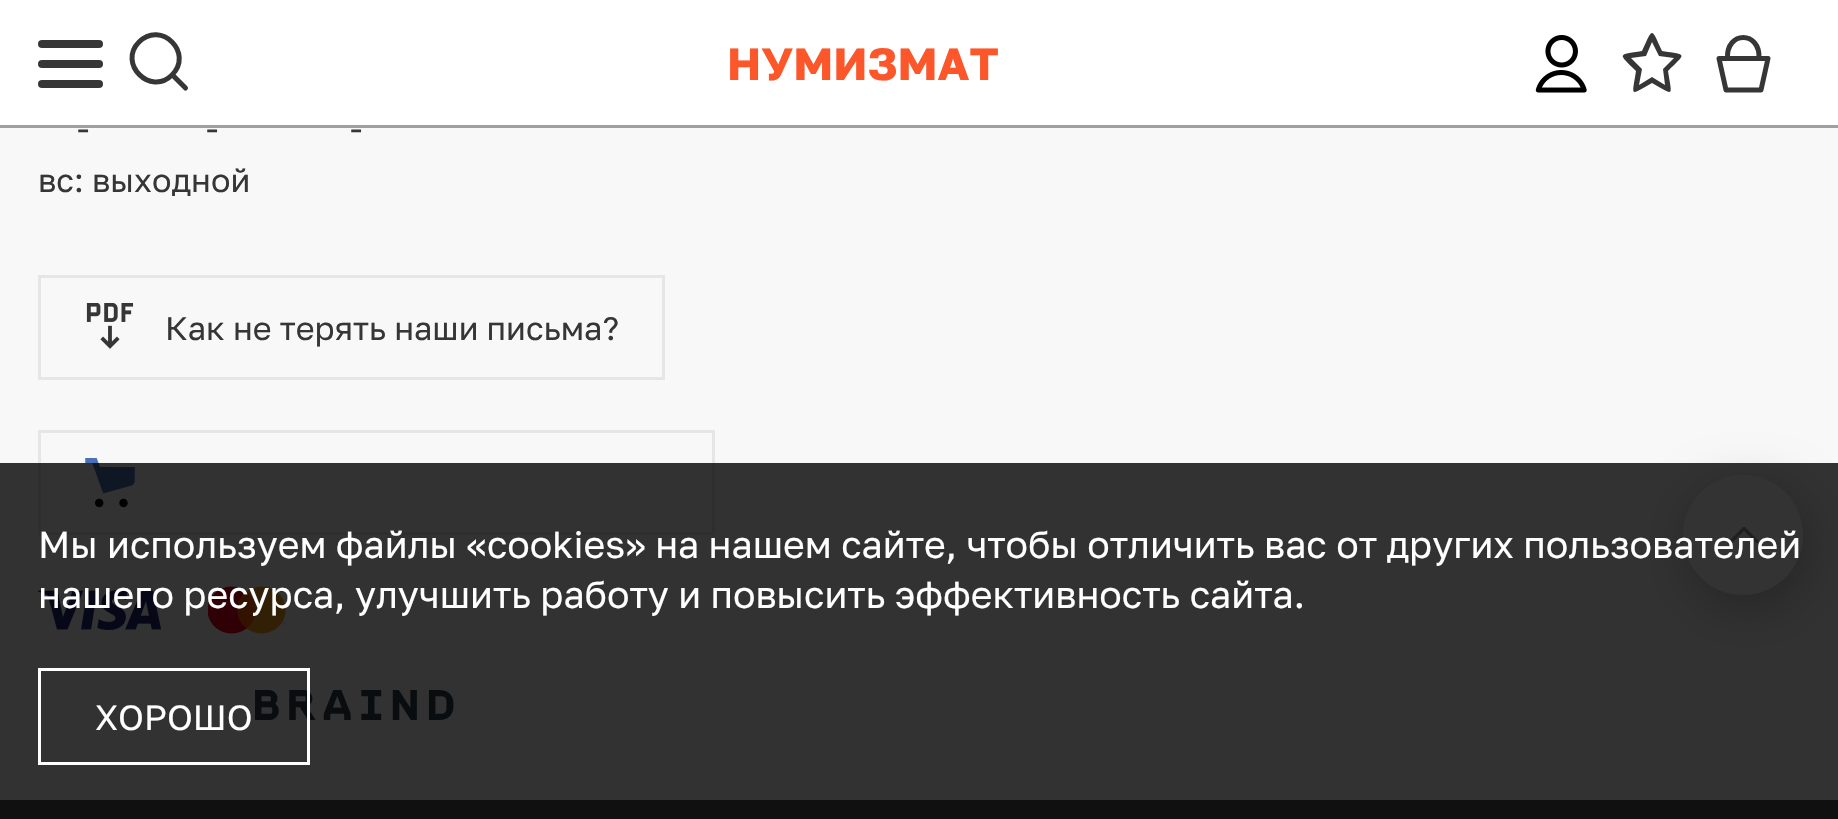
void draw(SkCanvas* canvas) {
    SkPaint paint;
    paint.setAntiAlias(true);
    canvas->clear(0xFFF8F8F8);
    paint.setColor(0xFFFFFFFF);
    canvas->drawRect(SkRect::MakeXYWH(0, 0, 1838, 125), paint);
    paint.setColor(0xFFA0A0A0);
    canvas->drawRect(SkRect::MakeXYWH(0, 125, 1838, 3), paint);
    paint.setColor(0xFF363636);
    canvas->drawRoundRect(SkRect::MakeXYWH(38, 40, 65, 8), 4, 4, paint);
    canvas->drawRoundRect(SkRect::MakeXYWH(38, 80, 65, 8), 4, 4, paint);
    canvas->drawRoundRect(SkRect::MakeXYWH(38, 60, 65, 8), 4, 4, paint);
    paint.setStyle(SkPaint::kStroke_Style);
    paint.setStrokeWidth(5);
    canvas->drawPath(SkPathBuilder().moveTo(139, 42).cubicTo(161, 20, 194, 53, 172, 75).cubicTo(150.5f, 96.5f, 117.5f, 63.5f, 139, 42).close().detach(), paint);
    paint.setStrokeCap(SkPaint::kRound_Cap);
    paint.setStrokeJoin(SkPaint::kRound_Join);
    canvas->drawPath(SkPathBuilder().moveTo(173.5f, 76).lineTo(185.5f, 88).detach(), paint);
    SkFont font1(fontMgr->matchFamilyStyle("Golos Text", SkFontStyle::Bold()), 45);
    font1.setSubpixel(true);
    paint.setStyle(SkPaint::kFill_Style);
    paint.setColor(0xFFFB572B);
    canvas->drawString("НУМИЗМАТ", 727, 80, font1, paint);
    canvas->drawImageRect(SkImages::DeferredFromEncodedData(SkData::MakeFromFileName("img1.png")), SkRect::MakeXYWH(1535, 35, 52, 58), SkSamplingOptions());
    paint.setColor(0xFF363636);
    canvas->drawPath(SkPathBuilder(SkPathFillType::kEvenOdd).moveTo(1662, 51).cubicTo(1651, 27, 1653, 27, 1642, 51).cubicTo(1617, 55, 1618, 53, 1636, 71).cubicTo(1632, 97, 1629, 96, 1652, 83).cubicTo(1675, 96, 1672, 97, 1668, 71).cubicTo(1686, 53, 1688, 55, 1662, 51).close().moveTo(1674, 58).lineTo(1659, 56).lineTo(1652, 42).lineTo(1646, 56).lineTo(1631, 58).lineTo(1642, 69).lineTo(1639, 85).lineTo(1652, 77).lineTo(1665, 85).lineTo(1663, 69).close().detach(), paint);
    paint.setStyle(SkPaint::kStroke_Style);
    paint.setStrokeCap(SkPaint::kButt_Cap);
    canvas->drawPath(SkPathBuilder().moveTo(1727.5f, 58.5f).lineTo(1719, 58.5f).lineTo(1726, 90).lineTo(1761, 90).lineTo(1768, 58.5f).lineTo(1759, 58.5f).moveTo(1727.5f, 58.5f).cubicTo(1726, 30.5f, 1760.5f, 30.5f, 1759, 58.5f).moveTo(1727.5f, 58.5f).lineTo(1759, 58.5f).detach(), paint);
    SkFont font2(fontMgr->matchFamilyStyle("Golos Text", SkFontStyle::Normal()), 32.5f);
    font2.setSubpixel(true);
    paint.setStyle(SkPaint::kFill_Style);
    canvas->drawString("-", 77, 140, font2, paint);
    canvas->drawString("-", 206, 140, font2, paint);
    canvas->drawString("-", 350, 140, font2, paint);
    canvas->drawString("вс: выходной", 38, 192, font2, paint);
    paint.setStyle(SkPaint::kStroke_Style);
    paint.setStrokeWidth(3);
    paint.setStrokeJoin(SkPaint::kMiter_Join);
    paint.setColor(0xFFE6E6E6);
    canvas->drawRect(SkRect::MakeXYWH(39.5f, 276.5f, 624, 102), paint);
    canvas->drawImageRect(SkImages::DeferredFromEncodedData(SkData::MakeFromFileName("img2.png")), SkRect::MakeXYWH(86, 303, 48, 46), SkSamplingOptions());
    paint.setStyle(SkPaint::kFill_Style);
    paint.setColor(0xFF363636);
    canvas->drawString("Как не терять наши письма?", 165, 340, font2, paint);
    paint.setStyle(SkPaint::kStroke_Style);
    paint.setColor(0xFFE6E6E6);
    canvas->drawRect(SkRect::MakeXYWH(39.5f, 431.5f, 674, 102), paint);
    canvas->drawImageRect(SkImages::DeferredFromEncodedData(SkData::MakeFromFileName("img3.png")), SkRect::MakeXYWH(85, 458, 50, 50), SkSamplingOptions());
    canvas->drawImageRect(SkImages::DeferredFromEncodedData(SkData::MakeFromFileName("img4.png")), SkRect::MakeXYWH(38, 590, 123, 40), SkSamplingOptions());
    canvas->drawImageRect(SkImages::DeferredFromEncodedData(SkData::MakeFromFileName("img5.png")), SkRect::MakeXYWH(208, 586, 78, 48), SkSamplingOptions());
    canvas->drawImageRect(SkImages::DeferredFromEncodedData(SkData::MakeFromFileName("img6.png")), SkRect::MakeXYWH(255, 690, 199, 30), SkSamplingOptions());
    paint.setStyle(SkPaint::kFill_Style);
    paint.setColor(0xFF4C4C4C);
    canvas->drawRect(SkRect::MakeXYWH(0, 800, 1838, 19), paint);
    paint.setColor(0x40000000);
    paint.setMaskFilter(SkMaskFilter::MakeBlur(kNormal_SkBlurStyle, 25));
    canvas->drawRoundRect(SkRect::MakeXYWH(1688, 488, 120, 120), 60, 60, paint);
    paint.setMaskFilter(nullptr);
    paint.setColor(0xFFFFFFFF);
    canvas->drawCircle(1743, 535, 60, paint);
    paint.setStyle(SkPaint::kStroke_Style);
    paint.setStrokeWidth(3.5f);
    paint.setStrokeCap(SkPaint::kRound_Cap);
    paint.setStrokeJoin(SkPaint::kRound_Join);
    paint.setColor(0xFFA0A0A0);
    canvas->drawPath(SkPathBuilder().moveTo(1731, 541.5f).lineTo(1744, 528.5f).lineTo(1757, 541.5f).detach(), paint);
    paint.setStyle(SkPaint::kFill_Style);
    paint.setColor(0xCC000000);
    canvas->drawRect(SkRect::MakeXYWH(0, 463, 1838, 356), paint);
    SkFont font3(fontMgr->matchFamilyStyle("Golos Text", SkFontStyle::Normal()), 37.5f);
    font3.setSubpixel(true);
    paint.setColor(0xFFFFFFFF);
    canvas->drawString("Мы используем файлы «cookies» на нашем сайте, чтобы отличить вас от других пользователей", 38, 558, font3, paint);
    canvas->drawString("нашего ресурса, улучшить работу и повысить эффективность сайта.", 38, 608, font3, paint);
    paint.setStyle(SkPaint::kStroke_Style);
    paint.setStrokeWidth(3);
    paint.setStrokeCap(SkPaint::kButt_Cap);
    paint.setStrokeJoin(SkPaint::kMiter_Join);
    canvas->drawRect(SkRect::MakeXYWH(39.5f, 669.5f, 269, 94), paint);
    SkFont font4(fontMgr->matchFamilyStyle("Golos Text", SkFontStyle::Normal()), 35);
    font4.setSubpixel(true);
    paint.setStyle(SkPaint::kFill_Style);
    canvas->drawString("ХОРОШО", 95, 730, font4, paint);
}
